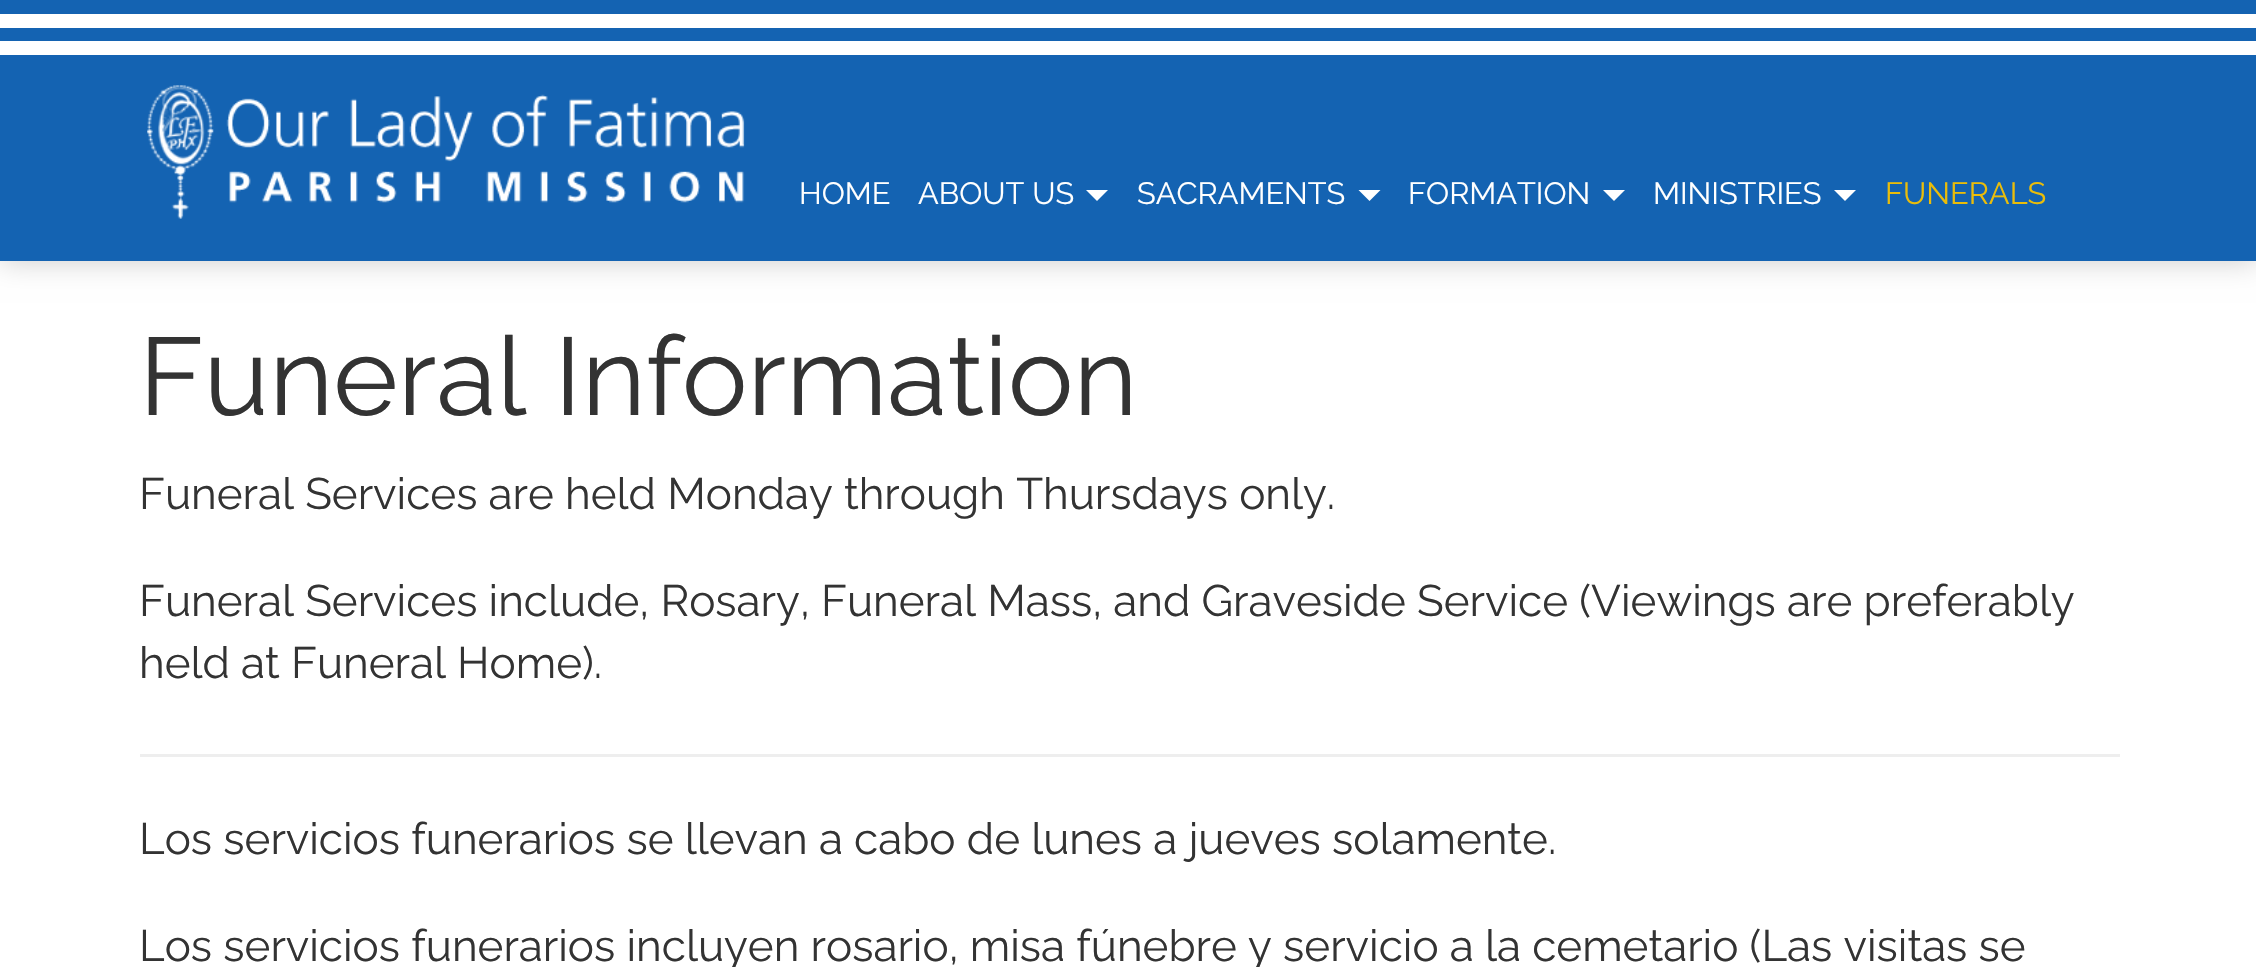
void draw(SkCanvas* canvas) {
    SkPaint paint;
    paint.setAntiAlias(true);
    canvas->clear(0xFFFFFFFF);
    paint.setColor(0x33000000);
    paint.setMaskFilter(SkMaskFilter::MakeBlur(kNormal_SkBlurStyle, 14));
    canvas->drawRect(SkRect::MakeXYWH(0, 0, 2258, 261), paint);
    paint.setMaskFilter(nullptr);
    paint.setColor(0xFF1463B2);
    canvas->drawRect(SkRect::MakeXYWH(0, 0, 2256, 261), paint);
    paint.setColor(0xFFFFFFFF);
    canvas->drawRect(SkRect::MakeXYWH(0, 14, 2256, 14), paint);
    canvas->drawRect(SkRect::MakeXYWH(0, 41, 2256, 14), paint);
    canvas->drawImageRect(SkImages::DeferredFromEncodedData(SkData::MakeFromFileName("img1.png")), SkRect::MakeXYWH(147, 85, 598, 134), SkSamplingOptions());
    SkFont font1(fontMgr->matchFamilyStyle("Raleway", SkFontStyle::Normal()), 30.75f);
    font1.setSubpixel(true);
    canvas->drawString("HOME", 799, 204, font1, paint);
    canvas->drawString("ABOUT US", 918, 204, font1, paint);
    canvas->drawPath(SkPathBuilder().moveTo(1086, 190).lineTo(1108, 190).lineTo(1097, 201).close().detach(), paint);
    canvas->drawString("SACRAMENTS", 1137, 204, font1, paint);
    canvas->drawPath(SkPathBuilder().moveTo(1358.5f, 190).lineTo(1380.5f, 190).lineTo(1369.5f, 201).close().detach(), paint);
    canvas->drawString("FORMATION", 1408, 204, font1, paint);
    canvas->drawPath(SkPathBuilder().moveTo(1603, 190).lineTo(1625, 190).lineTo(1614, 201).close().detach(), paint);
    canvas->drawString("MINISTRIES", 1653, 204, font1, paint);
    canvas->drawPath(SkPathBuilder().moveTo(1834, 190).lineTo(1856, 190).lineTo(1845, 201).close().detach(), paint);
    paint.setColor(0xFFEABD0A);
    canvas->drawString("FUNERALS", 1885, 204, font1, paint);
    SkFont font2(fontMgr->matchFamilyStyle("Raleway", SkFontStyle::Normal()), 110);
    font2.setSubpixel(true);
    paint.setColor(0xFF333333);
    canvas->drawString("Funeral Information", 139, 415, font2, paint);
    SkFont font3(fontMgr->matchFamilyStyle("Raleway", SkFontStyle::Normal()), 44);
    font3.setSubpixel(true);
    canvas->drawString("Funeral Services are held Monday through Thursdays only.", 139, 509, font3, paint);
    canvas->drawString("Funeral Services include, Rosary, Funeral Mass, and Graveside Service (Viewings are preferably", 139, 616, font3, paint);
    canvas->drawString("held at Funeral Home).", 139, 678, font3, paint);
    paint.setColor(0xFFEEEEEE);
    canvas->drawRect(SkRect::MakeXYWH(140, 754, 1980, 3), paint);
    paint.setColor(0xFF333333);
    canvas->drawString("Los servicios funerarios se llevan a cabo de lunes a jueves solamente.", 139, 854, font3, paint);
    canvas->drawString("Los servicios funerarios incluyen rosario, misa fúnebre y servicio a la cemetario (Las visitas se", 139, 961, font3, paint);
}
